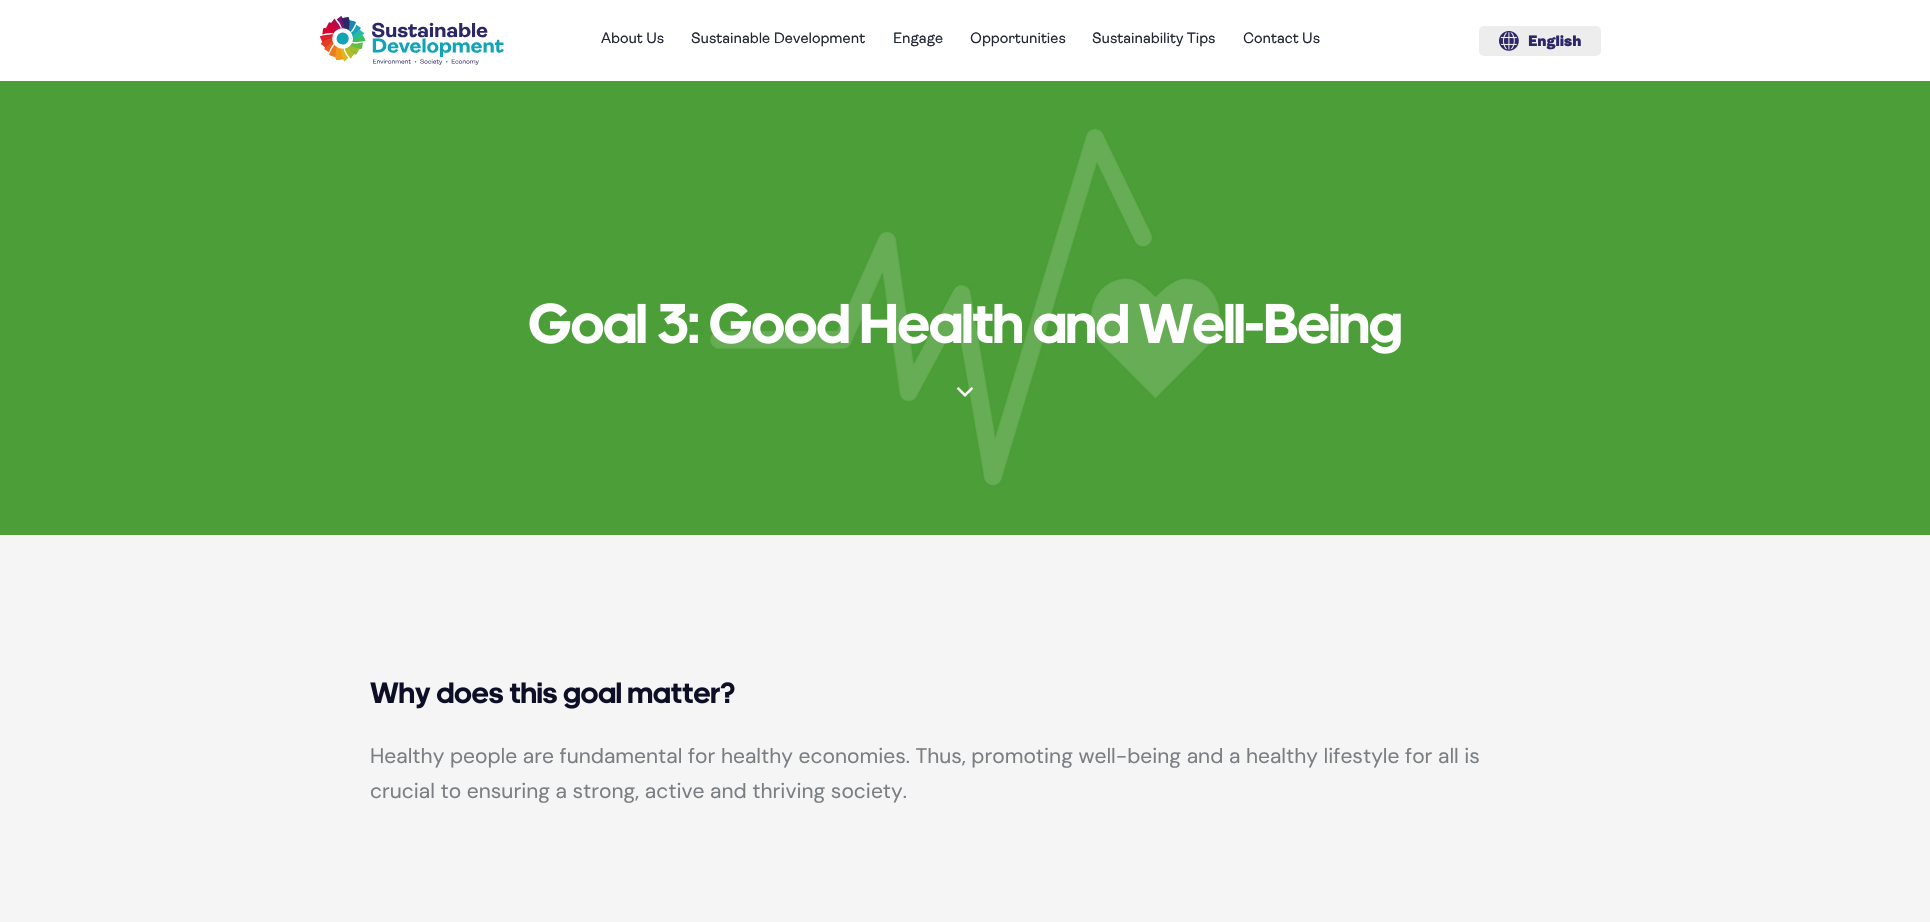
void draw(SkCanvas* canvas) {
    SkPaint paint;
    paint.setAntiAlias(true);
    canvas->clear(0xFFFFFFFF);
    canvas->drawImageRect(SkImages::DeferredFromEncodedData(SkData::MakeFromFileName("img1.png")), SkRect::MakeXYWH(320, 16, 184, 49), SkSamplingOptions());
    SkFont font1(fontMgr->matchFamilyStyle("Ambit", SkFontStyle::Normal()), 15);
    font1.setSubpixel(true);
    paint.setColor(0xFF222733);
    canvas->drawString("About Us", 601, 43, font1, paint);
    canvas->drawString("Sustainable Development", 691, 43, font1, paint);
    canvas->drawString("Engage", 893, 43, font1, paint);
    canvas->drawString("Opportunities", 970, 43, font1, paint);
    canvas->drawString("Sustainability Tips", 1092, 43, font1, paint);
    canvas->drawString("Contact Us", 1243, 43, font1, paint);
    paint.setColor(0xFFEDEDED);
    canvas->drawRoundRect(SkRect::MakeXYWH(1479, 26, 122, 30), 5, 5, paint);
    canvas->drawImageRect(SkImages::DeferredFromEncodedData(SkData::MakeFromFileName("img2.png")), SkRect::MakeXYWH(1499, 31, 20, 20), SkSamplingOptions());
    SkFont font2(fontMgr->matchFamilyStyle("Ambit", SkFontStyle(900, SkFontStyle::kNormal_Width, SkFontStyle::kUpright_Slant)), 15);
    font2.setSubpixel(true);
    paint.setColor(0xFF2C2767);
    canvas->drawString("English", 1528, 46, font2, paint);
    canvas->drawImageRect(SkImages::DeferredFromEncodedData(SkData::MakeFromFileName("img3.png")), SkRect::MakeXYWH(0, 81, 1930, 454), SkSamplingOptions());
    canvas->drawImageRect(SkImages::DeferredFromEncodedData(SkData::MakeFromFileName("img4.png")), SkRect::MakeXYWH(529, 303, 872, 51), SkSamplingOptions());
    canvas->drawImageRect(SkImages::DeferredFromEncodedData(SkData::MakeFromFileName("img5.png")), SkRect::MakeXYWH(957, 387, 16, 10), SkSamplingOptions());
    paint.setColor(0xFFF5F5F5);
    canvas->drawRect(SkRect::MakeXYWH(0, 535, 1930, 387), paint);
    canvas->drawImageRect(SkImages::DeferredFromEncodedData(SkData::MakeFromFileName("img6.png")), SkRect::MakeXYWH(370, 682, 365, 27), SkSamplingOptions());
    SkFont font3(fontMgr->matchFamilyStyle("DM Sans", SkFontStyle::Normal()), 21);
    font3.setSubpixel(true);
    paint.setColor(0xFF7A7E83);
    canvas->drawString("Healthy people are fundamental for healthy economies. Thus, promoting well-being and a healthy lifestyle for all is", 370, 763, font3, paint);
    canvas->drawString("crucial to ensuring a strong, active and thriving society.", 370, 798, font3, paint);
}
